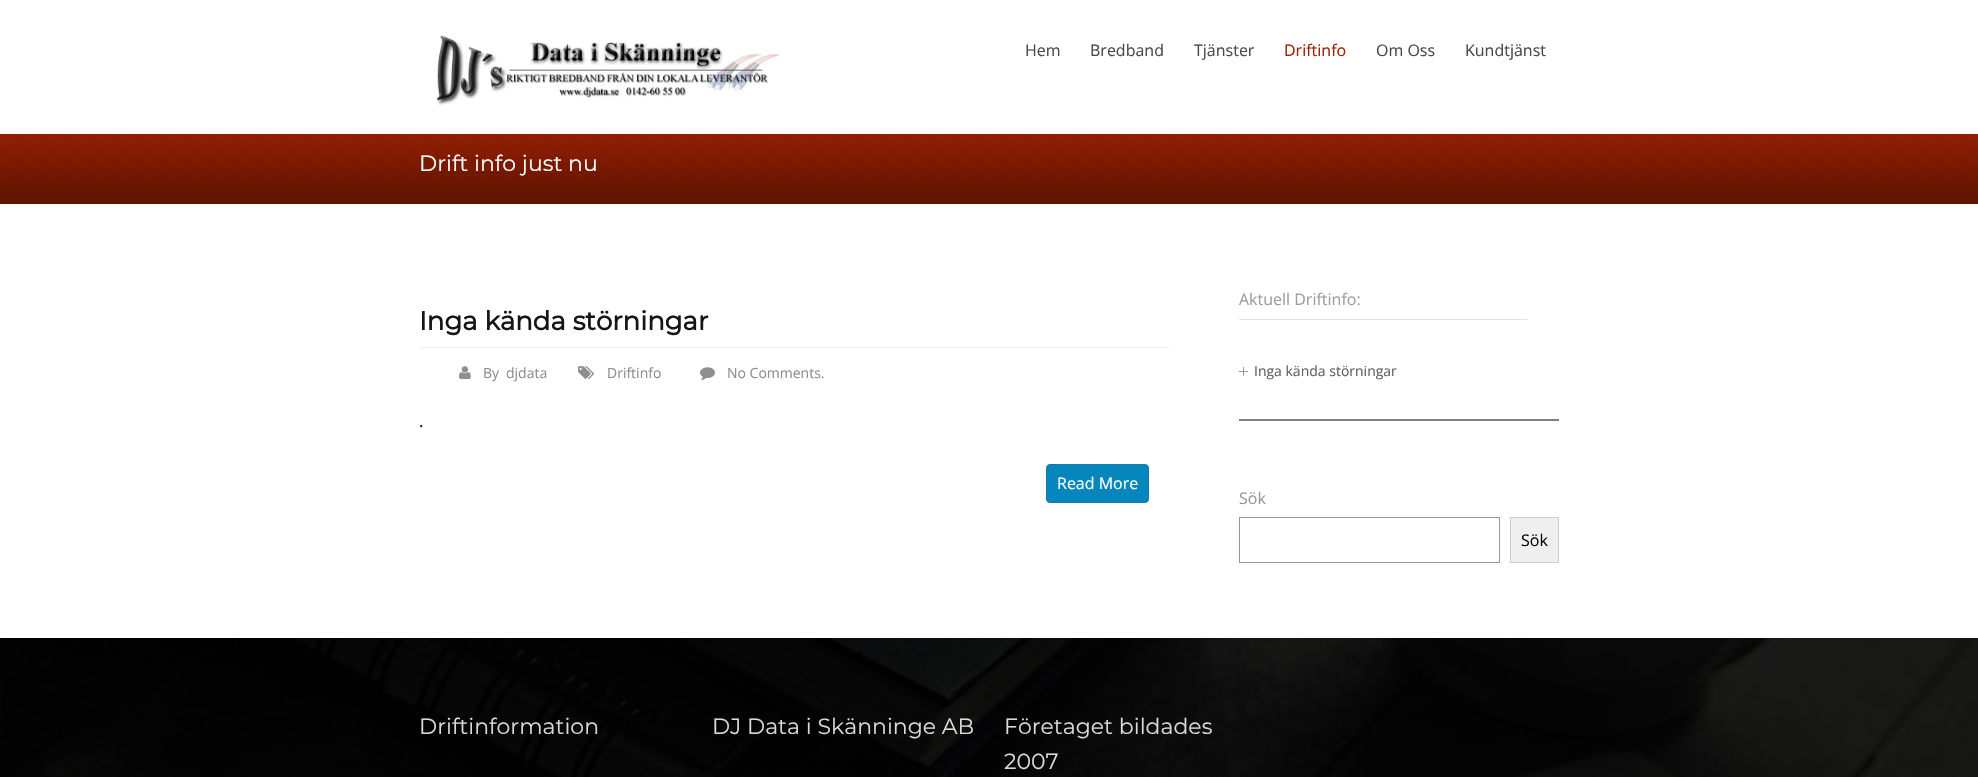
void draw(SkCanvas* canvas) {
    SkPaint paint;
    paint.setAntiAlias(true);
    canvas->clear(0xFFFFFFFF);
    canvas->drawImageRect(SkImages::DeferredFromEncodedData(SkData::MakeFromFileName("img2.png")), SkRect::MakeXYWH(0, 134, 1978, 70), SkSamplingOptions());
    paint.setColor(0x0F000000);
    paint.setMaskFilter(SkMaskFilter::MakeBlur(kNormal_SkBlurStyle, 5));
    canvas->drawRect(SkRect::MakeXYWH(0, 4, 1978, 134), paint);
    paint.setMaskFilter(nullptr);
    paint.setColor(0xFFFFFFFF);
    canvas->drawRect(SkRect::MakeXYWH(0, 0, 1978, 134), paint);
    canvas->drawImageRect(SkImages::DeferredFromEncodedData(SkData::MakeFromFileName("img1.png")), SkRect::MakeXYWH(437, 35, 342, 71), SkSamplingOptions());
    SkFont font1(fontMgr->matchFamilyStyle("Open Sans", SkFontStyle::Normal()), 16);
    font1.setSubpixel(true);
    paint.setColor(0xFF484848);
    canvas->drawString("Hem", 1025, 56, font1, paint);
    canvas->drawString("Bredband", 1090, 56, font1, paint);
    canvas->drawString("Tjänster", 1194, 56, font1, paint);
    paint.setColor(0xFF9A2103);
    canvas->drawString("Driftinfo", 1284, 56, font1, paint);
    paint.setColor(0xFF484848);
    canvas->drawString("Om Oss", 1376, 56, font1, paint);
    canvas->drawString("Kundtjänst", 1465, 56, font1, paint);
    SkFont font2(fontMgr->matchFamilyStyle("Montserrat", SkFontStyle(100, SkFontStyle::kNormal_Width, SkFontStyle::kUpright_Slant)), 22);
    font2.setSubpixel(true);
    paint.setColor(0xFFFFFFFF);
    canvas->drawString("Drift info just nu", 419, 171, font2, paint);
    paint.setColor(0xFFF1F1F1);
    canvas->drawRect(SkRect::MakeXYWH(419, 347, 750, 1), paint);
    SkFont font3(fontMgr->matchFamilyStyle("Montserrat", SkFontStyle::Bold()), 26);
    font3.setSubpixel(true);
    paint.setColor(0xFF151515);
    canvas->drawString("Inga kända störningar", 419, 330, font3, paint);
    canvas->drawImageRect(SkImages::DeferredFromEncodedData(SkData::MakeFromFileName("img3.png")), SkRect::MakeXYWH(459, 366, 12, 14), SkSamplingOptions());
    SkFont font4(fontMgr->matchFamilyStyle("Open Sans", SkFontStyle::Normal()), 14);
    font4.setSubpixel(true);
    paint.setColor(0xFF8F8E8E);
    canvas->drawString("By", 483, 378, font4, paint);
    canvas->drawString("djdata", 506, 378, font4, paint);
    canvas->drawImageRect(SkImages::DeferredFromEncodedData(SkData::MakeFromFileName("img4.png")), SkRect::MakeXYWH(578, 366, 16, 13), SkSamplingOptions());
    canvas->drawString("Driftinfo", 607, 378, font4, paint);
    canvas->drawImageRect(SkImages::DeferredFromEncodedData(SkData::MakeFromFileName("img5.png")), SkRect::MakeXYWH(700, 367, 15, 14), SkSamplingOptions());
    canvas->drawString("No Comments.", 727, 378, font4, paint);
    SkFont font5(fontMgr->matchFamilyStyle("Open Sans", SkFontStyle::Normal()), 17);
    font5.setSubpixel(true);
    paint.setColor(0xFF151515);
    canvas->drawString(".", 419, 427, font5, paint);
    paint.setColor(0xFF0586BD);
    canvas->drawRoundRect(SkRect::MakeXYWH(1046.5f, 464.5f, 102, 38), 3.5f, 3.5f, paint);
    paint.setStyle(SkPaint::kStroke_Style);
    paint.setStrokeWidth(1);
    paint.setColor(0xFF1779A4);
    canvas->drawRoundRect(SkRect::MakeXYWH(1046.5f, 464.5f, 102, 38), 3.5f, 3.5f, paint);
    paint.setStyle(SkPaint::kFill_Style);
    paint.setColor(0xFFFFFFFF);
    canvas->drawString("Read More", 1057, 489, font1, paint);
    paint.setColor(0xFFE3E2E2);
    canvas->drawRect(SkRect::MakeXYWH(1239, 319, 288, 1), paint);
    paint.setColor(0xFF9E9D9D);
    canvas->drawString("Aktuell Driftinfo:", 1239, 305, font1, paint);
    canvas->drawImageRect(SkImages::DeferredFromEncodedData(SkData::MakeFromFileName("img6.png")), SkRect::MakeXYWH(1239, 367, 9, 9), SkSamplingOptions());
    paint.setColor(0xFF615F5F);
    canvas->drawString("Inga kända störningar", 1254, 376, font4, paint);
    paint.setColor(0xFF808080);
    canvas->drawRect(SkRect::MakeXYWH(1239, 419, 320, 2), paint);
    paint.setColor(0xFF979696);
    canvas->drawString("Sök", 1239, 504, font1, paint);
    paint.setStyle(SkPaint::kStroke_Style);
    paint.setColor(0xFF949494);
    canvas->drawRect(SkRect::MakeXYWH(1239.5f, 517.5f, 260, 45), paint);
    paint.setStyle(SkPaint::kFill_Style);
    paint.setColor(0xFFEFEFEF);
    canvas->drawRect(SkRect::MakeXYWH(1510.5f, 517.5f, 48, 45), paint);
    paint.setStyle(SkPaint::kStroke_Style);
    paint.setColor(0xFFCCCCCC);
    canvas->drawRect(SkRect::MakeXYWH(1510.5f, 517.5f, 48, 45), paint);
    paint.setStyle(SkPaint::kFill_Style);
    paint.setColor(0xFF080808);
    canvas->drawString("Sök", 1521, 546, font1, paint);
    canvas->drawImageRect(SkImages::DeferredFromEncodedData(SkData::MakeFromFileName("img7.png")), SkRect::MakeXYWH(0, 638, 1978, 139), SkSamplingOptions());
    paint.setColor(0xFFDAD9D9);
    canvas->drawString("Driftinformation", 419, 734, font2, paint);
    canvas->drawString("DJ Data i Skänninge AB", 712, 734, font2, paint);
    canvas->drawString("Företaget bildades", 1004, 734, font2, paint);
    canvas->drawString("2007", 1004, 769, font2, paint);
}
